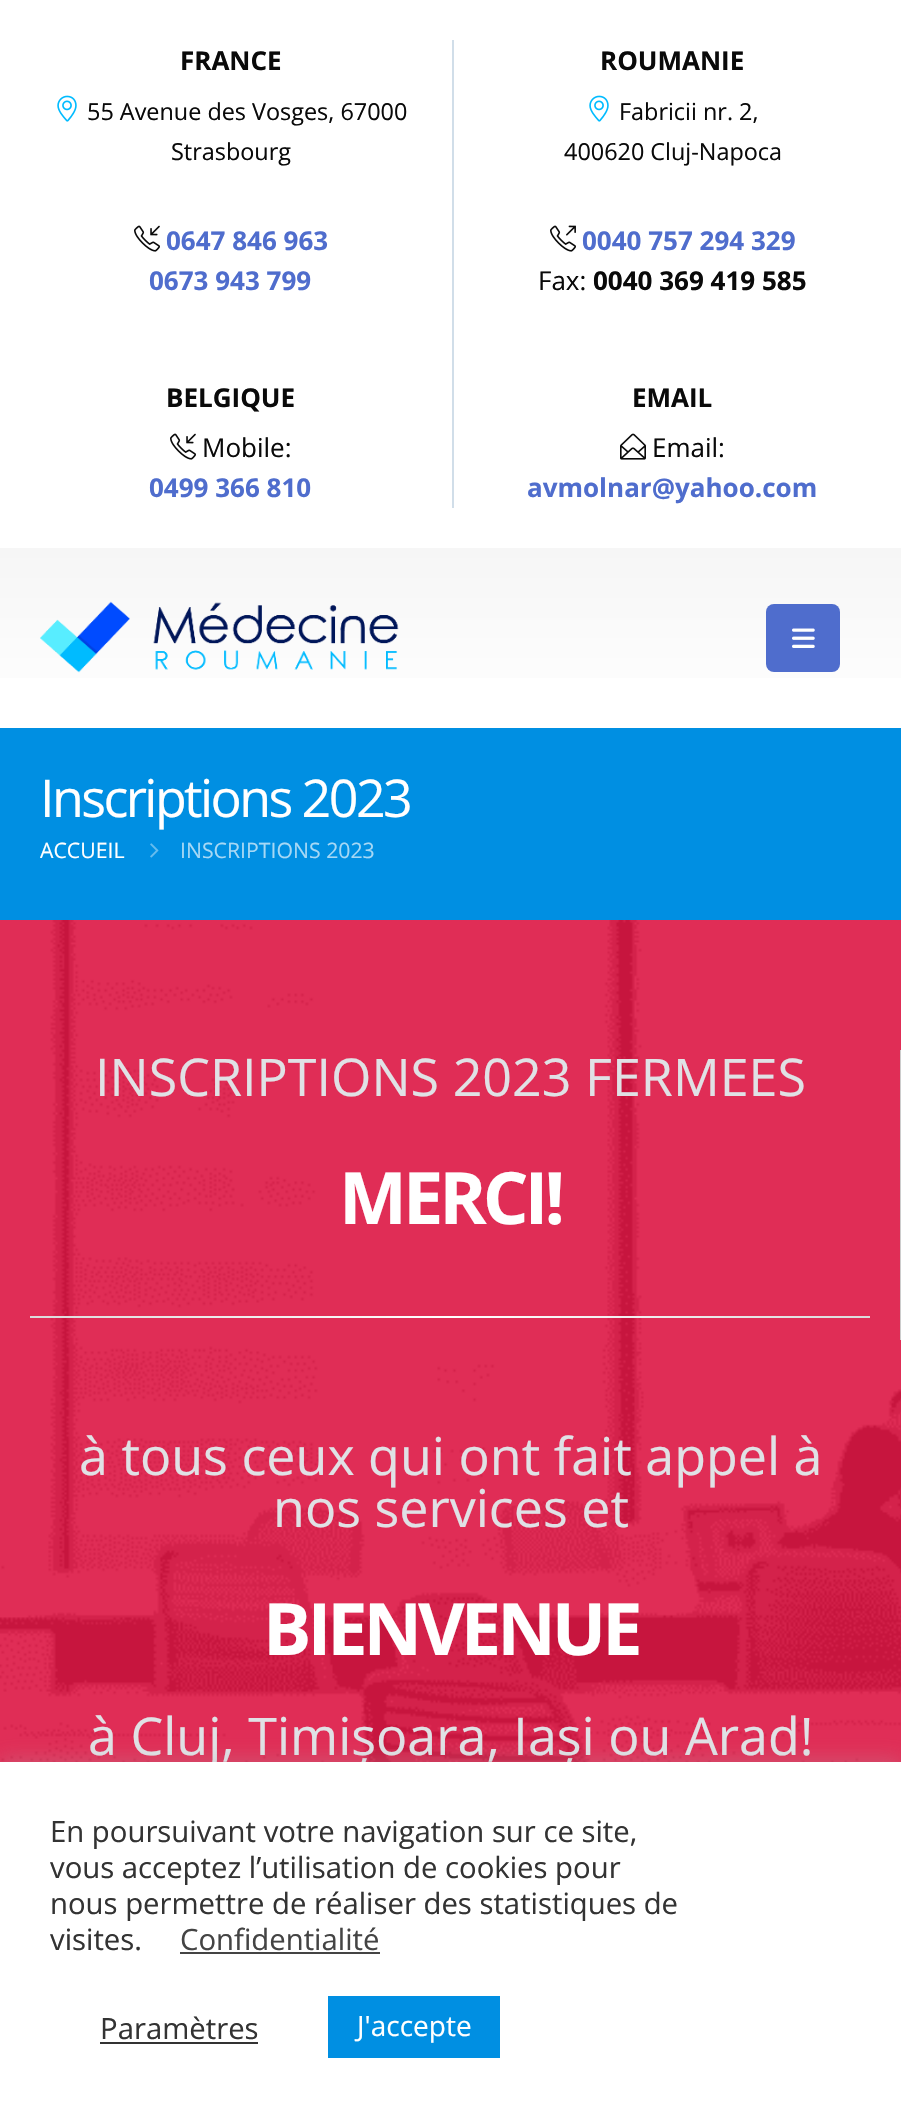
void draw(SkCanvas* canvas) {
    SkPaint paint;
    paint.setAntiAlias(true);
    auto spacedText = [&](const char* s, float x, float y, const SkFont& font, const SkPaint& ink, float letter, float word) {
        std::vector<SkGlyphID> glyphs(font.countText(s, strlen(s), SkTextEncoding::kUTF8));
        std::vector<float> xs(glyphs.size());
        font.textToGlyphs(s, strlen(s), SkTextEncoding::kUTF8, glyphs);
        font.getXPos(glyphs, xs, x);
        float extra = 0;
        for (size_t i = 0; i < glyphs.size(); i++) {
            xs[i] += extra;
            extra += letter + word * (glyphs[i] == font.unicharToGlyph(' '));
        }
        canvas->drawTextBlob(SkTextBlob::MakeFromPosHGlyphs(glyphs, xs, y, font), 0, 0, ink);
    };
    canvas->clear(0xFFFFFFFF);
    SkFont font1(fontMgr->matchFamilyStyle("Open Sans", SkFontStyle::Bold()), 26);
    font1.setSubpixel(true);
    paint.setColor(0xFF0A0A0A);
    canvas->drawString("FRANCE", 180, 70, font1, paint);
    canvas->drawImageRect(SkImages::DeferredFromEncodedData(SkData::MakeFromFileName("img1.png")), SkRect::MakeXYWH(57, 95, 20, 27), SkSamplingOptions());
    SkFont font2(fontMgr->matchFamilyStyle("Open Sans", SkFontStyle::Normal()), 23.4f);
    font2.setSubpixel(true);
    canvas->drawString("55 Avenue des Vosges, 67000", 87, 120, font2, paint);
    canvas->drawString("Strasbourg", 171, 160, font2, paint);
    canvas->drawImageRect(SkImages::DeferredFromEncodedData(SkData::MakeFromFileName("img2.png")), SkRect::MakeXYWH(134, 225, 26, 27), SkSamplingOptions());
    paint.setColor(0xFF4F6DCD);
    canvas->drawString("0647 846 963", 166, 250, font1, paint);
    canvas->drawString("0673 943 799", 149, 290, font1, paint);
    paint.setColor(0xFFD1DEE9);
    canvas->drawRect(SkRect::MakeXYWH(452, 40, 2, 468), paint);
    paint.setColor(0xFF0A0A0A);
    canvas->drawString("ROUMANIE", 600, 70, font1, paint);
    canvas->drawImageRect(SkImages::DeferredFromEncodedData(SkData::MakeFromFileName("img1.png")), SkRect::MakeXYWH(589, 95, 20, 27), SkSamplingOptions());
    canvas->drawString("Fabricii nr. 2,", 619, 120, font2, paint);
    canvas->drawString("400620 Cluj-Napoca", 564, 160, font2, paint);
    canvas->drawImageRect(SkImages::DeferredFromEncodedData(SkData::MakeFromFileName("img3.png")), SkRect::MakeXYWH(550, 225, 26, 27), SkSamplingOptions());
    paint.setColor(0xFF4F6DCD);
    canvas->drawString("0040 757 294 329", 582, 250, font1, paint);
    SkFont font3(fontMgr->matchFamilyStyle("Open Sans", SkFontStyle::Normal()), 26);
    font3.setSubpixel(true);
    paint.setColor(0xFF0A0A0A);
    canvas->drawString("Fax:", 538, 290, font3, paint);
    canvas->drawString("0040 369 419 585", 593, 290, font1, paint);
    canvas->drawString("BELGIQUE", 166, 407, font1, paint);
    canvas->drawImageRect(SkImages::DeferredFromEncodedData(SkData::MakeFromFileName("img2.png")), SkRect::MakeXYWH(170, 433, 26, 27), SkSamplingOptions());
    canvas->drawString("Mobile:", 202, 457, font3, paint);
    paint.setColor(0xFF4F6DCD);
    canvas->drawString("0499 366 810", 149, 497, font1, paint);
    paint.setColor(0xFF0A0A0A);
    canvas->drawString("EMAIL", 632, 407, font1, paint);
    canvas->drawImageRect(SkImages::DeferredFromEncodedData(SkData::MakeFromFileName("img4.png")), SkRect::MakeXYWH(620, 433, 26, 27), SkSamplingOptions());
    canvas->drawString("Email:", 652, 457, font3, paint);
    paint.setColor(0xFF4F6DCD);
    canvas->drawString("avmolnar@yahoo.com", 527, 497, font1, paint);
    {
        const SkColor colors[] = {0xFFF6F6F6, 0xFFFFFFFF};
        const float stops[] = {0, 1};
        const SkPoint ends[] = {{451, 548}, {451, 728}};
        paint.setShader(SkGradientShader::MakeLinear(ends, colors, stops, 2, SkTileMode::kClamp));
        paint.setAlpha(255);
    }
    canvas->drawRect(SkRect::MakeXYWH(0, 548, 901, 130), paint);
    canvas->drawImageRect(SkImages::DeferredFromEncodedData(SkData::MakeFromFileName("img5.png")), SkRect::MakeXYWH(40, 601, 359, 72), SkSamplingOptions());
    paint.setShader(nullptr);
    paint.setColor(0xFF4F6DCD);
    canvas->drawRoundRect(SkRect::MakeXYWH(766, 604, 74, 68), 8, 8, paint);
    canvas->drawImageRect(SkImages::DeferredFromEncodedData(SkData::MakeFromFileName("img6.png")), SkRect::MakeXYWH(792, 628, 23, 20), SkSamplingOptions());
    paint.setColor(0xFF008FE2);
    canvas->drawRect(SkRect::MakeXYWH(0, 728, 901, 192), paint);
    SkFont font4(fontMgr->matchFamilyStyle("Open Sans", SkFontStyle::Normal()), 52);
    font4.setSubpixel(true);
    paint.setColor(0xFFFFFFFF);
    spacedText("Inscriptions 2023", 40, 817, font4, paint, -2.6f, 0);
    SkFont font5(fontMgr->matchFamilyStyle("Open Sans", SkFontStyle::Normal()), 21.25f);
    font5.setSubpixel(true);
    canvas->drawString("ACCUEIL", 40, 858, font5, paint);
    canvas->drawImageRect(SkImages::DeferredFromEncodedData(SkData::MakeFromFileName("img7.png")), SkRect::MakeXYWH(150, 843, 9, 15), SkSamplingOptions());
    paint.setColor(0xFFA6D8F5);
    canvas->drawString("INSCRIPTIONS 2023", 180, 858, font5, paint);
    canvas->drawImageRect(SkImages::DeferredFromEncodedData(SkData::MakeFromFileName("img8.png")), SkRect::MakeXYWH(0, 920, 901, 842), SkSamplingOptions());
    paint.setColor(0xFFCCCCCC);
    canvas->drawRect(SkRect::MakeXYWH(900, 1050, 1, 290), paint);
    paint.setColor(0xFFE0E1E5);
    canvas->drawString("INSCRIPTIONS 2023 FERMEES", 95, 1096, font4, paint);
    SkFont font6(fontMgr->matchFamilyStyle("Open Sans", SkFontStyle::Bold()), 72);
    font6.setSubpixel(true);
    paint.setColor(0xFFFFFFFF);
    spacedText("MERCI!", 339, 1224, font6, paint, -4, 0);
    {
        const SkColor colors[] = {0xFFDBDBDB, 0xFFFFFFFF, 0xFFDBDBDB};
        const float stops[] = {0, 0.5f, 1};
        const SkPoint ends[] = {{30, 1317}, {870, 1317}};
        paint.setShader(SkGradientShader::MakeLinear(ends, colors, stops, 3, SkTileMode::kClamp));
        paint.setAlpha(255);
    }
    canvas->drawRect(SkRect::MakeXYWH(30, 1316, 840, 2), paint);
    paint.setShader(nullptr);
    paint.setColor(0xFFE0E1E5);
    canvas->drawString("à tous ceux qui ont fait appel à", 79, 1475, font4, paint);
    canvas->drawString("nos services et", 273, 1527, font4, paint);
    paint.setColor(0xFFFFFFFF);
    spacedText("BIENVENUE", 263, 1655, font6, paint, -4, 0);
    paint.setColor(0xFFE0E1E5);
    canvas->drawString("à Cluj, Timișoara, Iași ou Arad!", 88, 1755, font4, paint);
    paint.setColor(0x4DACABAB);
    paint.setMaskFilter(SkMaskFilter::MakeBlur(kNormal_SkBlurStyle, 10));
    canvas->drawRect(SkRect::MakeXYWH(0, 1760, 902, 366), paint);
    paint.setMaskFilter(nullptr);
    paint.setColor(0xFFFFFFFF);
    canvas->drawRect(SkRect::MakeXYWH(0, 1762, 901, 365), paint);
    SkFont font7(fontMgr->matchFamilyStyle("Open Sans", SkFontStyle::Normal()), 29.3f);
    font7.setSubpixel(true);
    paint.setColor(0xFF333333);
    canvas->drawString("En poursuivant votre navigation sur ce site,", 50, 1842, font7, paint);
    canvas->drawString("vous acceptez l’utilisation de cookies pour", 50, 1878, font7, paint);
    canvas->drawString("nous permettre de réaliser des statistiques de", 50, 1914, font7, paint);
    canvas->drawString("visites.", 50, 1950, font7, paint);
    paint.setColor(0xFF444444);
    canvas->drawString("Confidentialité", 180, 1950, font7, paint);
    canvas->drawRect(SkRect::MakeXYWH(180, 1952, 200, 2), paint);
    paint.setColor(0xFF333333);
    canvas->drawString("Paramètres", 100, 2039, font7, paint);
    canvas->drawRect(SkRect::MakeXYWH(100, 2042, 158, 2), paint);
    paint.setColor(0xFF008FE2);
    canvas->drawRect(SkRect::MakeXYWH(328, 1996, 172, 62), paint);
    SkFont font8(fontMgr->matchFamilyStyle("Open Sans", SkFontStyle::Normal()), 28);
    font8.setSubpixel(true);
    paint.setColor(0xFFFFFFFF);
    canvas->drawString("J'accepte", 357, 2036, font8, paint);
}
